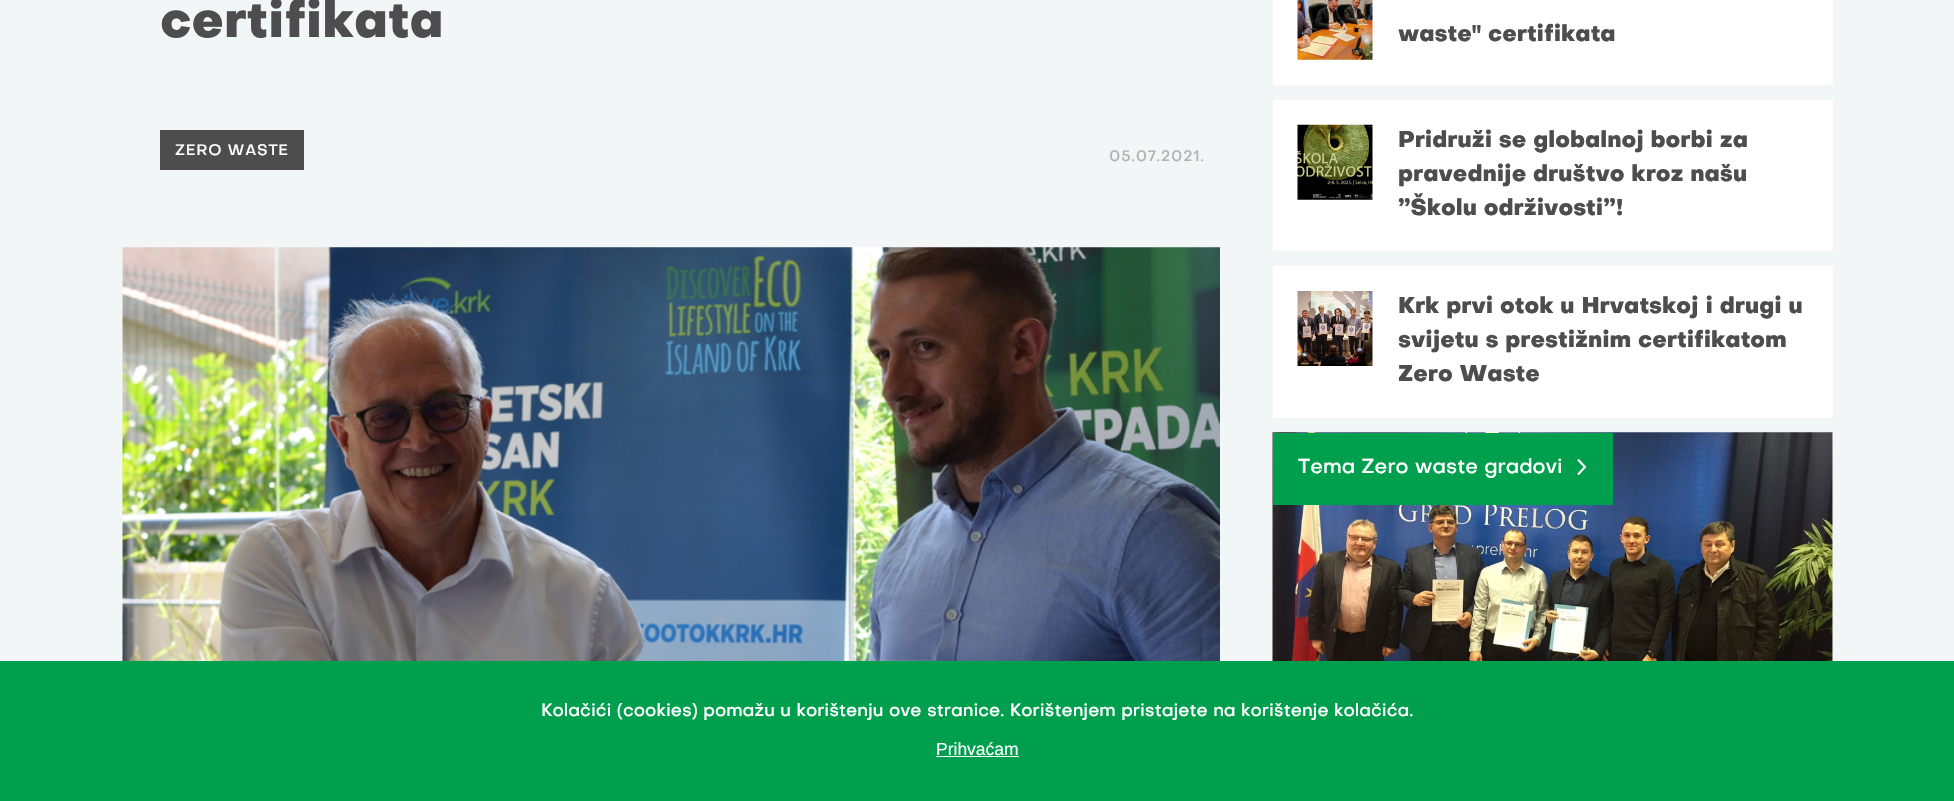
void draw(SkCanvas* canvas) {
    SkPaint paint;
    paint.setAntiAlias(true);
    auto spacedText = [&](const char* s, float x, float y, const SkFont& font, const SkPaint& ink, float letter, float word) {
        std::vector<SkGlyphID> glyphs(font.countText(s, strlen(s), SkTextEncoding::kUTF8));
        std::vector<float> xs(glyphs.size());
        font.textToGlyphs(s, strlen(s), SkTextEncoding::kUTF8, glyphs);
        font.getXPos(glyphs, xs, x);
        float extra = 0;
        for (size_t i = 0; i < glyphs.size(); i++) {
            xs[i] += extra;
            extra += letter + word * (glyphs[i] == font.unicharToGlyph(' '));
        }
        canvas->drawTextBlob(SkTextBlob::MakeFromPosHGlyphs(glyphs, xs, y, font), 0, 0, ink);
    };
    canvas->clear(0xFFF2F6F7);
    SkFont font1(fontMgr->matchFamilyStyle("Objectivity", SkFontStyle(800, SkFontStyle::kNormal_Width, SkFontStyle::kUpright_Slant)), 50);
    font1.setSubpixel(true);
    paint.setColor(0xFF4D4D4D);
    canvas->drawString("certifikata", 160, 37, font1, paint);
    canvas->drawRect(SkRect::MakeXYWH(160, 130, 144, 40), paint);
    SkFont font2(fontMgr->matchFamilyStyle("Objectivity", SkFontStyle(500, SkFontStyle::kNormal_Width, SkFontStyle::kUpright_Slant)), 15);
    font2.setSubpixel(true);
    paint.setColor(0xFFFFFFFF);
    spacedText("ZERO WASTE", 175, 155, font2, paint, 0.75f, 0);
    paint.setColor(0xFFB4B4B4);
    spacedText("05.07.2021.", 1109, 161, font2, paint, 0.75f, 0);
    canvas->drawImageRect(SkImages::DeferredFromEncodedData(SkData::MakeFromFileName("img1.png")), SkRect::MakeXYWH(122, 247, 1098, 414), SkSamplingOptions());
    paint.setColor(0xFFFFFFFF);
    canvas->drawRect(SkRect::MakeXYWH(1273, 0, 560, 85), paint);
    canvas->drawImageRect(SkImages::DeferredFromEncodedData(SkData::MakeFromFileName("img2.png")), SkRect::MakeXYWH(1297, 0, 76, 60), SkSamplingOptions());
    SkFont font3(fontMgr->matchFamilyStyle("Objectivity", SkFontStyle(800, SkFontStyle::kNormal_Width, SkFontStyle::kUpright_Slant)), 22.5f);
    font3.setSubpixel(true);
    paint.setColor(0xFF4D4D4D);
    canvas->drawString("waste\" certifikata", 1398, 41, font3, paint);
    paint.setColor(0xFFFFFFFF);
    canvas->drawRect(SkRect::MakeXYWH(1273, 100, 560, 151), paint);
    canvas->drawImageRect(SkImages::DeferredFromEncodedData(SkData::MakeFromFileName("img3.png")), SkRect::MakeXYWH(1297, 124, 76, 76), SkSamplingOptions());
    paint.setColor(0xFF4D4D4D);
    canvas->drawString("Pridruži se globalnoj borbi za", 1398, 147, font3, paint);
    canvas->drawString("pravednije društvo kroz našu", 1398, 181, font3, paint);
    canvas->drawString("”Školu održivosti”!", 1398, 215, font3, paint);
    paint.setColor(0xFFFFFFFF);
    canvas->drawRect(SkRect::MakeXYWH(1273, 266, 560, 152), paint);
    canvas->drawImageRect(SkImages::DeferredFromEncodedData(SkData::MakeFromFileName("img4.png")), SkRect::MakeXYWH(1297, 291, 76, 75), SkSamplingOptions());
    paint.setColor(0xFF4D4D4D);
    canvas->drawString("Krk prvi otok u Hrvatskoj i drugi u", 1398, 313, font3, paint);
    canvas->drawString("svijetu s prestižnim certifikatom", 1398, 347, font3, paint);
    canvas->drawString("Zero Waste", 1398, 381, font3, paint);
    paint.setColor(0xFFFFFFFF);
    canvas->drawRect(SkRect::MakeXYWH(1832, 433, 1, 228), paint);
    canvas->drawImageRect(SkImages::DeferredFromEncodedData(SkData::MakeFromFileName("img5.png")), SkRect::MakeXYWH(1272, 432, 561, 229), SkSamplingOptions());
    paint.setColor(0xFF009F4D);
    canvas->drawRect(SkRect::MakeXYWH(1273, 433, 340, 72), paint);
    SkFont font4(fontMgr->matchFamilyStyle("Objectivity", SkFontStyle(500, SkFontStyle::kNormal_Width, SkFontStyle::kUpright_Slant)), 20);
    font4.setSubpixel(true);
    paint.setColor(0xFFFFFFFF);
    canvas->drawString("Tema Zero waste gradovi", 1298, 473, font4, paint);
    paint.setStyle(SkPaint::kStroke_Style);
    paint.setStrokeWidth(2.1f);
    canvas->drawPath(SkPathBuilder().moveTo(1578, 459.5f).lineTo(1585, 467).lineTo(1578, 474.5f).detach(), paint);
    paint.setStyle(SkPaint::kFill_Style);
    paint.setColor(0xFF009F4D);
    canvas->drawRect(SkRect::MakeXYWH(0, 661, 1954, 140), paint);
    SkFont font5(fontMgr->matchFamilyStyle("Objectivity", SkFontStyle(500, SkFontStyle::kNormal_Width, SkFontStyle::kUpright_Slant)), 17.5f);
    font5.setSubpixel(true);
    paint.setColor(0xFFFFFFFF);
    canvas->drawString("Kolačići (cookies) pomažu u korištenju ove stranice. Korištenjem pristajete na korištenje kolačića.", 541, 716, font5, paint);
    SkFont font6(fontMgr->matchFamilyStyle("Liberation Sans", SkFontStyle::Normal()), 17.5f);
    font6.setSubpixel(true);
    canvas->drawString("Prihvaćam", 936, 755, font6, paint);
    canvas->drawRect(SkRect::MakeXYWH(936, 756, 83, 1), paint);
}
